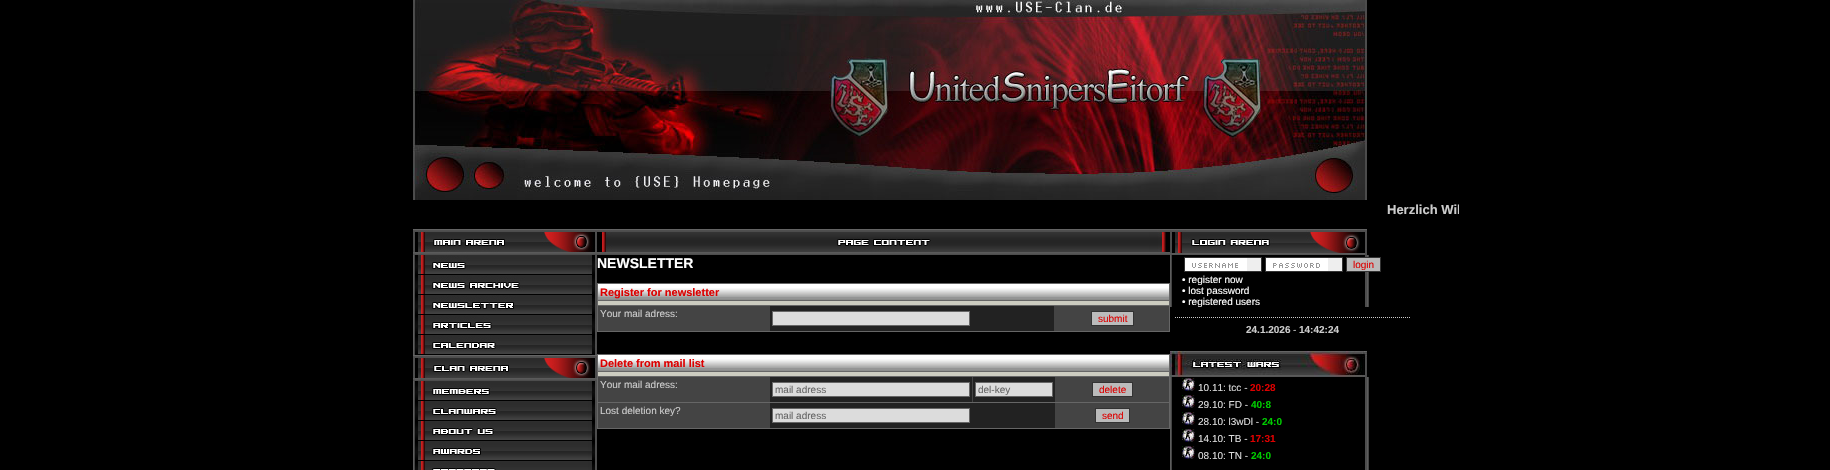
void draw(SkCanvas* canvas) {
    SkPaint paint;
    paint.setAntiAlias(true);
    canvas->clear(0xFF000000);
    canvas->drawImageRect(SkImages::DeferredFromEncodedData(SkData::MakeFromFileName("img1.png")), SkRect::MakeXYWH(413, 0, 954, 200), SkSamplingOptions());
    canvas->save();
    canvas->clipRect(SkRect::MakeXYWH(371, 200, 1088, 18));
    SkFont font1(fontMgr->matchFamilyStyle("Liberation Sans", SkFontStyle::Bold()), 13);
    font1.setSubpixel(true);
    paint.setColor(0xFFCCCCCC);
    canvas->drawString("Herzlich Wil", 1387, 214, font1, paint);
    canvas->restore();
    canvas->drawImageRect(SkImages::DeferredFromEncodedData(SkData::MakeFromFileName("img2.png")), SkRect::MakeXYWH(413, 229, 184, 26), SkSamplingOptions());
    canvas->drawImageRect(SkImages::DeferredFromEncodedData(SkData::MakeFromFileName("img3.png")), SkRect::MakeXYWH(413, 255, 184, 20), SkSamplingOptions());
    canvas->drawImageRect(SkImages::DeferredFromEncodedData(SkData::MakeFromFileName("img4.png")), SkRect::MakeXYWH(413, 275, 184, 20), SkSamplingOptions());
    canvas->drawImageRect(SkImages::DeferredFromEncodedData(SkData::MakeFromFileName("img5.png")), SkRect::MakeXYWH(413, 295, 184, 20), SkSamplingOptions());
    canvas->drawImageRect(SkImages::DeferredFromEncodedData(SkData::MakeFromFileName("img6.png")), SkRect::MakeXYWH(413, 315, 184, 20), SkSamplingOptions());
    canvas->drawImageRect(SkImages::DeferredFromEncodedData(SkData::MakeFromFileName("img7.png")), SkRect::MakeXYWH(413, 335, 184, 20), SkSamplingOptions());
    canvas->drawImageRect(SkImages::DeferredFromEncodedData(SkData::MakeFromFileName("img8.png")), SkRect::MakeXYWH(413, 355, 184, 26), SkSamplingOptions());
    canvas->drawImageRect(SkImages::DeferredFromEncodedData(SkData::MakeFromFileName("img9.png")), SkRect::MakeXYWH(413, 381, 184, 20), SkSamplingOptions());
    canvas->drawImageRect(SkImages::DeferredFromEncodedData(SkData::MakeFromFileName("img10.png")), SkRect::MakeXYWH(413, 401, 184, 20), SkSamplingOptions());
    canvas->drawImageRect(SkImages::DeferredFromEncodedData(SkData::MakeFromFileName("img11.png")), SkRect::MakeXYWH(413, 421, 184, 20), SkSamplingOptions());
    canvas->drawImageRect(SkImages::DeferredFromEncodedData(SkData::MakeFromFileName("img12.png")), SkRect::MakeXYWH(413, 441, 184, 20), SkSamplingOptions());
    canvas->drawImageRect(SkImages::DeferredFromEncodedData(SkData::MakeFromFileName("img13.png")), SkRect::MakeXYWH(413, 461, 184, 9), SkSamplingOptions());
    canvas->drawImageRect(SkImages::DeferredFromEncodedData(SkData::MakeFromFileName("img14.png")), SkRect::MakeXYWH(597, 229, 573, 26), SkSamplingOptions());
    SkFont font2(fontMgr->matchFamilyStyle("Liberation Sans", SkFontStyle::Bold()), 14);
    font2.setSubpixel(true);
    paint.setColor(0xFFFFFFFF);
    canvas->drawString("NEWSLETTER", 597, 268, font2, paint);
    paint.setColor(0xFF666666);
    canvas->drawRect(SkRect::MakeXYWH(597, 283, 573, 49), paint);
    canvas->drawImageRect(SkImages::DeferredFromEncodedData(SkData::MakeFromFileName("img15.png")), SkRect::MakeXYWH(598, 284, 571, 16), SkSamplingOptions());
    SkFont font3(fontMgr->matchFamilyStyle("Liberation Sans", SkFontStyle::Bold()), 11);
    font3.setSubpixel(true);
    paint.setColor(0xFFDD0000);
    canvas->drawString("Register for newsletter", 600, 296, font3, paint);
    paint.setColor(0xFFCCCCC0);
    canvas->drawRect(SkRect::MakeXYWH(598, 301, 571, 4), paint);
    paint.setColor(0xFF444444);
    canvas->drawRect(SkRect::MakeXYWH(598, 306, 571, 25), paint);
    SkFont font4(fontMgr->matchFamilyStyle("Liberation Sans", SkFontStyle::Normal()), 10);
    font4.setSubpixel(true);
    paint.setColor(0xFFCCCCCC);
    canvas->drawString("Your mail adress:", 600, 317, font4, paint);
    paint.setColor(0xFF222222);
    canvas->drawRect(SkRect::MakeXYWH(770, 306, 284, 25), paint);
    paint.setColor(0xFFDCDCDC);
    canvas->drawRect(SkRect::MakeXYWH(772.5f, 311.5f, 197, 14), paint);
    paint.setStyle(SkPaint::kStroke_Style);
    paint.setStrokeWidth(1);
    paint.setColor(0xFF666666);
    canvas->drawRect(SkRect::MakeXYWH(772.5f, 311.5f, 197, 14), paint);
    paint.setStyle(SkPaint::kFill_Style);
    paint.setColor(0xFFBBBBBB);
    canvas->drawRect(SkRect::MakeXYWH(1091.5f, 311.5f, 42, 14), paint);
    paint.setStyle(SkPaint::kStroke_Style);
    paint.setColor(0xFF333333);
    canvas->drawRect(SkRect::MakeXYWH(1091.5f, 311.5f, 42, 14), paint);
    paint.setStyle(SkPaint::kFill_Style);
    paint.setColor(0xFFDD0000);
    canvas->drawString("submit", 1098, 322, font4, paint);
    paint.setColor(0xFF666666);
    canvas->drawRect(SkRect::MakeXYWH(597, 354, 573, 75), paint);
    canvas->drawImageRect(SkImages::DeferredFromEncodedData(SkData::MakeFromFileName("img15.png")), SkRect::MakeXYWH(598, 355, 571, 16), SkSamplingOptions());
    paint.setColor(0xFFDD0000);
    canvas->drawString("Delete from mail list", 600, 367, font3, paint);
    paint.setColor(0xFFCCCCC0);
    canvas->drawRect(SkRect::MakeXYWH(598, 372, 571, 4), paint);
    paint.setColor(0xFF444444);
    canvas->drawRect(SkRect::MakeXYWH(598, 377, 571, 25), paint);
    paint.setColor(0xFFCCCCCC);
    canvas->drawString("Your mail adress:", 600, 388, font4, paint);
    paint.setColor(0xFF222222);
    canvas->drawRect(SkRect::MakeXYWH(770, 377, 202, 25), paint);
    paint.setColor(0xFFDCDCDC);
    canvas->drawRect(SkRect::MakeXYWH(772.5f, 382.5f, 197, 14), paint);
    paint.setStyle(SkPaint::kStroke_Style);
    paint.setColor(0xFF666666);
    canvas->drawRect(SkRect::MakeXYWH(772.5f, 382.5f, 197, 14), paint);
    paint.setStyle(SkPaint::kFill_Style);
    canvas->drawString("mail adress", 775, 393, font4, paint);
    paint.setColor(0xFF222222);
    canvas->drawRect(SkRect::MakeXYWH(973, 377, 82, 25), paint);
    paint.setColor(0xFFDCDCDC);
    canvas->drawRect(SkRect::MakeXYWH(975.5f, 382.5f, 77, 14), paint);
    paint.setStyle(SkPaint::kStroke_Style);
    paint.setColor(0xFF666666);
    canvas->drawRect(SkRect::MakeXYWH(975.5f, 382.5f, 77, 14), paint);
    paint.setStyle(SkPaint::kFill_Style);
    canvas->drawString("del-key", 978, 393, font4, paint);
    paint.setColor(0xFFBBBBBB);
    canvas->drawRect(SkRect::MakeXYWH(1092.5f, 382.5f, 40, 14), paint);
    paint.setStyle(SkPaint::kStroke_Style);
    paint.setColor(0xFF333333);
    canvas->drawRect(SkRect::MakeXYWH(1092.5f, 382.5f, 40, 14), paint);
    paint.setStyle(SkPaint::kFill_Style);
    paint.setColor(0xFFDD0000);
    canvas->drawString("delete", 1099, 393, font4, paint);
    paint.setColor(0xFF444444);
    canvas->drawRect(SkRect::MakeXYWH(598, 403, 571, 25), paint);
    paint.setColor(0xFFCCCCCC);
    canvas->drawString("Lost deletion key?", 600, 414, font4, paint);
    paint.setColor(0xFF222222);
    canvas->drawRect(SkRect::MakeXYWH(770, 403, 285, 25), paint);
    paint.setColor(0xFFDCDCDC);
    canvas->drawRect(SkRect::MakeXYWH(772.5f, 408.5f, 197, 14), paint);
    paint.setStyle(SkPaint::kStroke_Style);
    paint.setColor(0xFF666666);
    canvas->drawRect(SkRect::MakeXYWH(772.5f, 408.5f, 197, 14), paint);
    paint.setStyle(SkPaint::kFill_Style);
    canvas->drawString("mail adress", 775, 419, font4, paint);
    paint.setColor(0xFFBBBBBB);
    canvas->drawRect(SkRect::MakeXYWH(1095.5f, 408.5f, 34, 14), paint);
    paint.setStyle(SkPaint::kStroke_Style);
    paint.setColor(0xFF333333);
    canvas->drawRect(SkRect::MakeXYWH(1095.5f, 408.5f, 34, 14), paint);
    paint.setStyle(SkPaint::kFill_Style);
    paint.setColor(0xFFDD0000);
    canvas->drawString("send", 1102, 419, font4, paint);
    canvas->drawImageRect(SkImages::DeferredFromEncodedData(SkData::MakeFromFileName("img16.png")), SkRect::MakeXYWH(1170, 229, 197, 26), SkSamplingOptions());
    canvas->drawImageRect(SkImages::DeferredFromEncodedData(SkData::MakeFromFileName("img17.png")), SkRect::MakeXYWH(1170, 255, 199, 52), SkSamplingOptions());
    paint.setColor(0xFFEEEEEE);
    canvas->drawRect(SkRect::MakeXYWH(1247, 258, 14, 13), paint);
    canvas->drawImageRect(SkImages::DeferredFromEncodedData(SkData::MakeFromFileName("img18.png")), SkRect::MakeXYWH(1185, 258, 62, 13), SkSamplingOptions());
    paint.setStyle(SkPaint::kStroke_Style);
    paint.setColor(0xFF333333);
    canvas->drawRect(SkRect::MakeXYWH(1184.5f, 257.5f, 77, 14), paint);
    paint.setStyle(SkPaint::kFill_Style);
    paint.setColor(0xFFEEEEEE);
    canvas->drawRect(SkRect::MakeXYWH(1328, 258, 14, 13), paint);
    canvas->drawImageRect(SkImages::DeferredFromEncodedData(SkData::MakeFromFileName("img19.png")), SkRect::MakeXYWH(1266, 258, 62, 13), SkSamplingOptions());
    paint.setStyle(SkPaint::kStroke_Style);
    paint.setColor(0xFF333333);
    canvas->drawRect(SkRect::MakeXYWH(1265.5f, 257.5f, 77, 14), paint);
    paint.setStyle(SkPaint::kFill_Style);
    paint.setColor(0xFFBBBBBB);
    canvas->drawRect(SkRect::MakeXYWH(1346.5f, 257.5f, 34, 14), paint);
    paint.setStyle(SkPaint::kStroke_Style);
    paint.setColor(0xFF333333);
    canvas->drawRect(SkRect::MakeXYWH(1346.5f, 257.5f, 34, 14), paint);
    paint.setStyle(SkPaint::kFill_Style);
    paint.setColor(0xFFDD0000);
    canvas->drawString("login", 1353, 268, font4, paint);
    paint.setColor(0xFFFFFFFF);
    canvas->drawString("• register now", 1182, 283, font4, paint);
    canvas->drawString("• lost password", 1182, 294, font4, paint);
    canvas->drawString("• registered users", 1182, 305, font4, paint);
    paint.setStyle(SkPaint::kStroke_Style);
    paint.setColor(0xFFCCCCCC);
    paint.setPathEffect(SkDashPathEffect::Make({{1, 1}}, 0));
    canvas->drawPath(SkPathBuilder().moveTo(1175, 317.5f).lineTo(1410, 317.5f).detach(), paint);
    paint.setPathEffect(nullptr);
    SkFont font5(fontMgr->matchFamilyStyle("Liberation Sans", SkFontStyle::Bold()), 10);
    font5.setSubpixel(true);
    paint.setStyle(SkPaint::kFill_Style);
    canvas->drawString("24.1.2026", 1246, 333, font5, paint);
    canvas->drawString("-", 1293, 333, font4, paint);
    canvas->drawString("14:42:24", 1299, 333, font5, paint);
    canvas->drawImageRect(SkImages::DeferredFromEncodedData(SkData::MakeFromFileName("img20.png")), SkRect::MakeXYWH(1170, 351, 197, 26), SkSamplingOptions());
    canvas->drawImageRect(SkImages::DeferredFromEncodedData(SkData::MakeFromFileName("img21.png")), SkRect::MakeXYWH(1170, 377, 199, 93), SkSamplingOptions());
    canvas->drawImageRect(SkImages::DeferredFromEncodedData(SkData::MakeFromFileName("img22.png")), SkRect::MakeXYWH(1182, 378, 13, 13), SkSamplingOptions());
    paint.setColor(0xFFDDDDDD);
    canvas->drawString("10.11: tcc -", 1198, 391, font4, paint);
    paint.setColor(0xFFDD0000);
    canvas->drawString("20:28", 1250, 391, font5, paint);
    canvas->drawImageRect(SkImages::DeferredFromEncodedData(SkData::MakeFromFileName("img22.png")), SkRect::MakeXYWH(1182, 395, 13, 13), SkSamplingOptions());
    paint.setColor(0xFFDDDDDD);
    canvas->drawString("29.10: FD -", 1198, 408, font4, paint);
    paint.setColor(0xFF00CC00);
    canvas->drawString("40:8", 1251, 408, font5, paint);
    canvas->drawImageRect(SkImages::DeferredFromEncodedData(SkData::MakeFromFileName("img22.png")), SkRect::MakeXYWH(1182, 412, 13, 13), SkSamplingOptions());
    paint.setColor(0xFFDDDDDD);
    canvas->drawString("28.10: l3wDl -", 1198, 425, font4, paint);
    paint.setColor(0xFF00CC00);
    canvas->drawString("24:0", 1262, 425, font5, paint);
    canvas->drawImageRect(SkImages::DeferredFromEncodedData(SkData::MakeFromFileName("img22.png")), SkRect::MakeXYWH(1182, 429, 13, 13), SkSamplingOptions());
    paint.setColor(0xFFDDDDDD);
    canvas->drawString("14.10: TB -", 1198, 442, font4, paint);
    paint.setColor(0xFFDD0000);
    canvas->drawString("17:31", 1250, 442, font5, paint);
    canvas->drawImageRect(SkImages::DeferredFromEncodedData(SkData::MakeFromFileName("img22.png")), SkRect::MakeXYWH(1182, 446, 13, 13), SkSamplingOptions());
    paint.setColor(0xFFDDDDDD);
    canvas->drawString("08.10: TN -", 1198, 459, font4, paint);
    paint.setColor(0xFF00CC00);
    canvas->drawString("24:0", 1251, 459, font5, paint);
}
